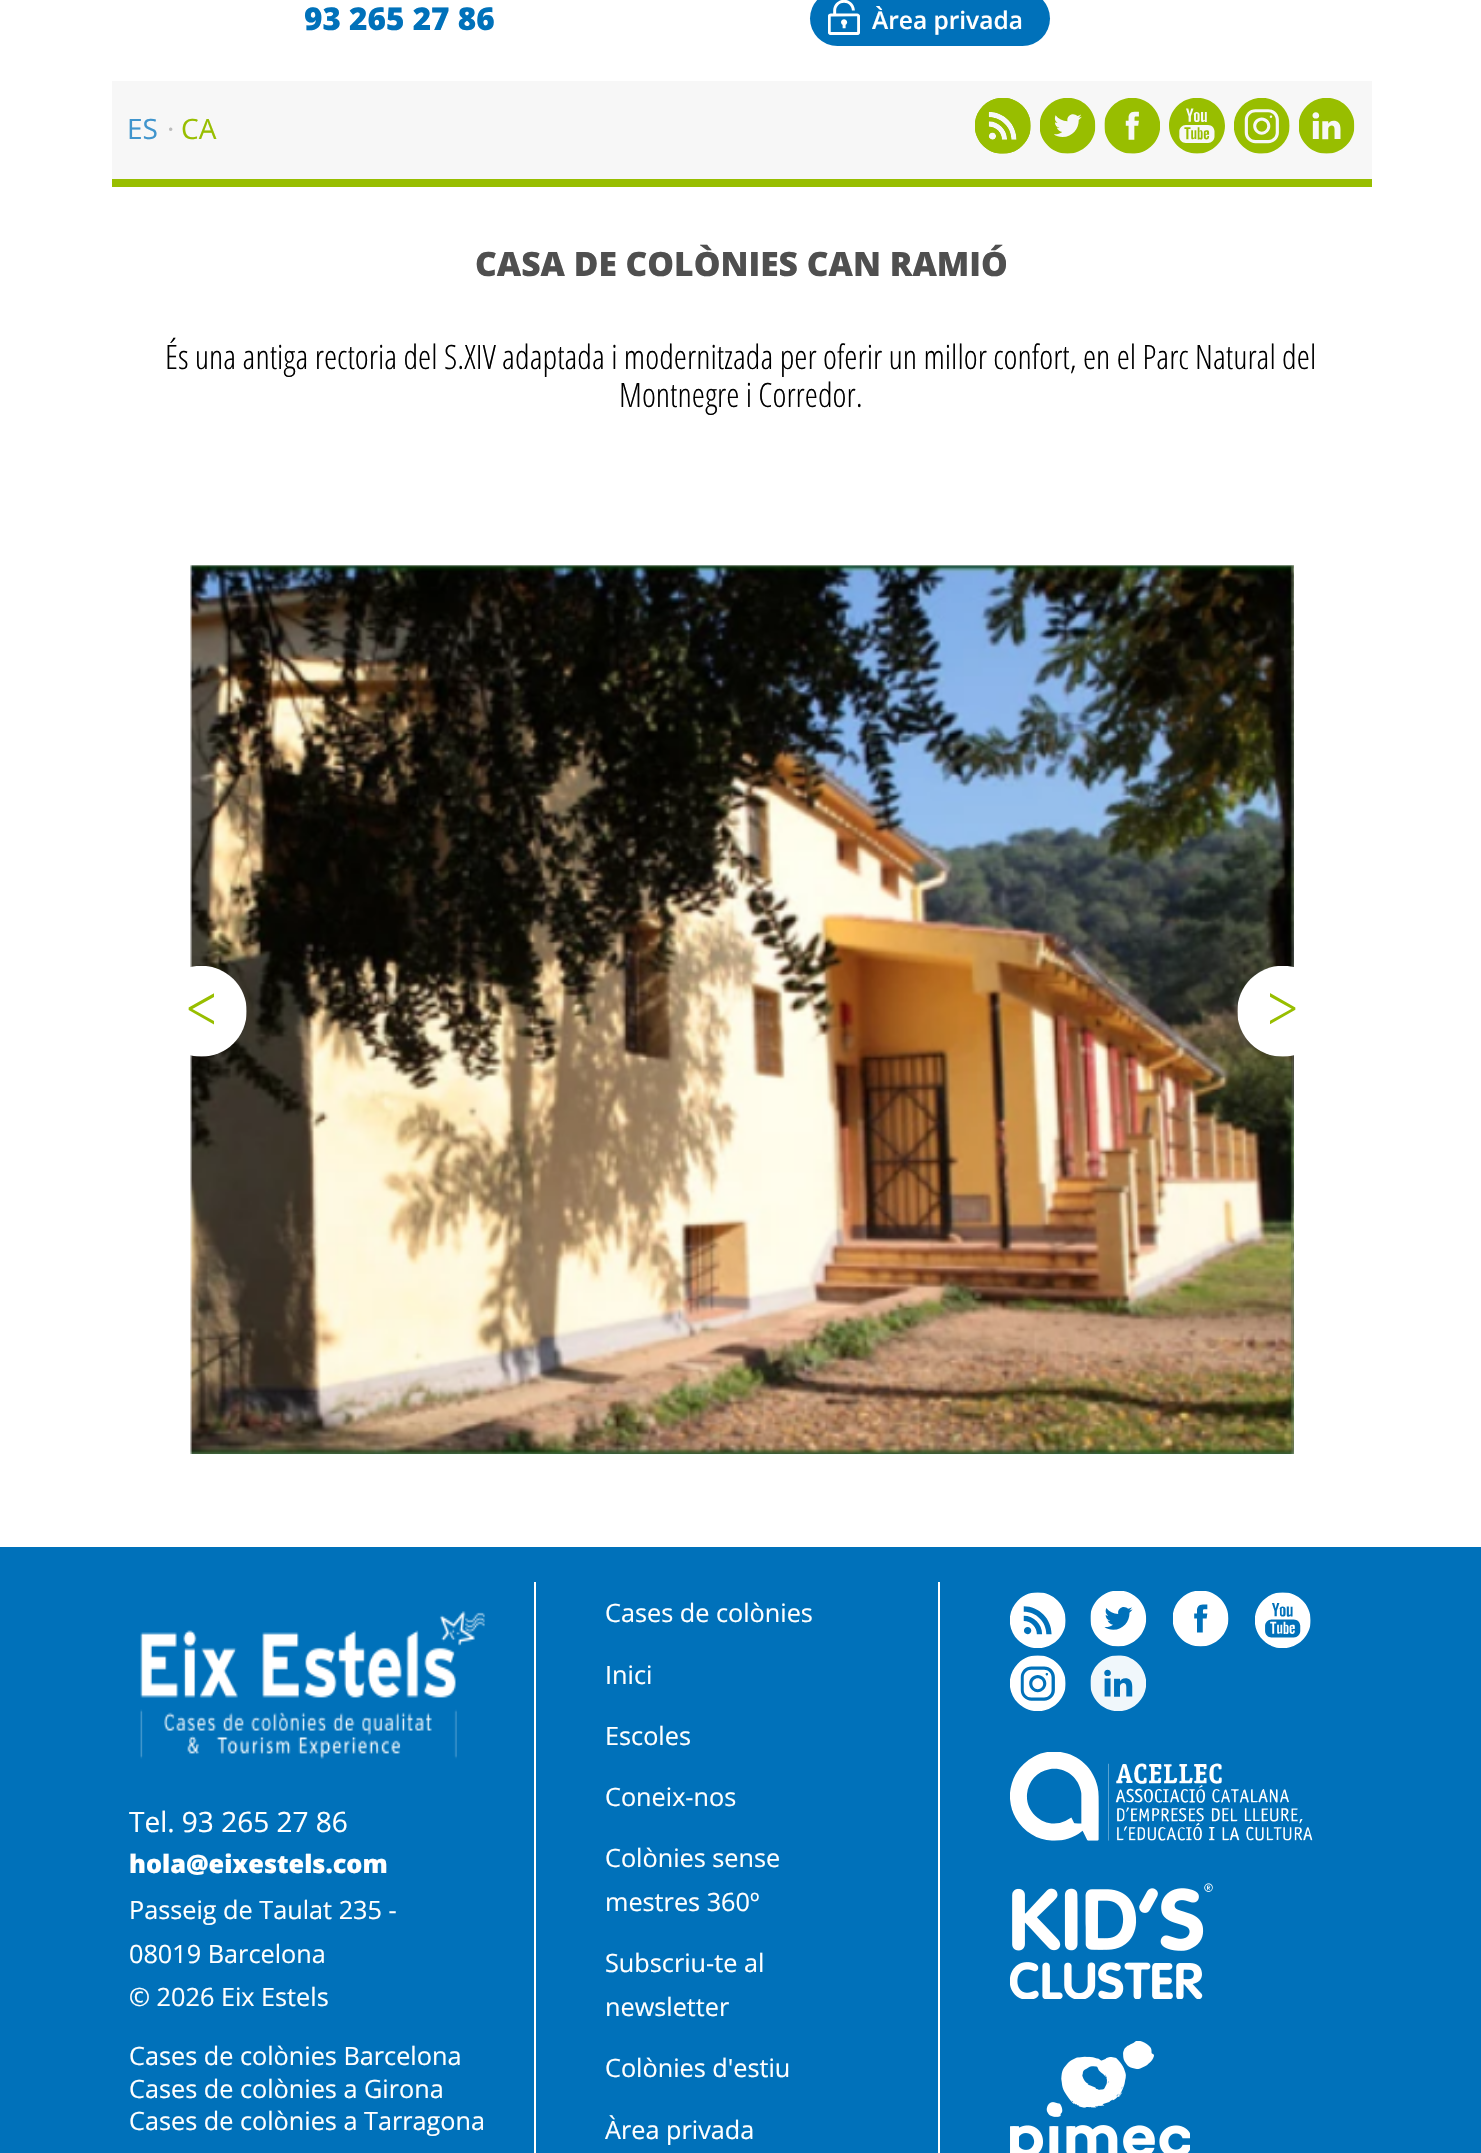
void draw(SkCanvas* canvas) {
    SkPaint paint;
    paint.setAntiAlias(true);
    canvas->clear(0xFFFFFFFF);
    SkFont font1(fontMgr->matchFamilyStyle("Open Sans", SkFontStyle(800, SkFontStyle::kNormal_Width, SkFontStyle::kUpright_Slant)), 31.5f);
    font1.setSubpixel(true);
    paint.setColor(0xFF0071BA);
    canvas->drawString("93 265 27 86", 304, 30, font1, paint);
    canvas->drawRoundRect(SkRect::MakeXYWH(810, -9, 240, 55), 27.5f, 27.5f, paint);
    canvas->drawImageRect(SkImages::DeferredFromEncodedData(SkData::MakeFromFileName("img1.png")), SkRect::MakeXYWH(828, 0, 32, 35), SkSamplingOptions());
    SkFont font2(fontMgr->matchFamilyStyle("Open Sans", SkFontStyle(600, SkFontStyle::kNormal_Width, SkFontStyle::kUpright_Slant)), 24.5f);
    font2.setSubpixel(true);
    paint.setColor(0xFFFFFFFF);
    canvas->drawString("Àrea privada", 872, 29, font2, paint);
    paint.setColor(0xFFF7F7F7);
    canvas->drawRect(SkRect::MakeXYWH(112, 81, 1260, 98), paint);
    paint.setColor(0xFF98BE00);
    canvas->drawRect(SkRect::MakeXYWH(112, 179, 1260, 8), paint);
    SkFont font3(fontMgr->matchFamilyStyle("Open Sans", SkFontStyle::Normal()), 28);
    font3.setSubpixel(true);
    paint.setColor(0xFF4095CD);
    canvas->drawString("ES", 127, 139, font3, paint);
    paint.setColor(0xFFBCBCBC);
    canvas->drawString("·", 167, 139, font3, paint);
    paint.setColor(0xFF98BE00);
    canvas->drawString("CA", 181, 139, font3, paint);
    canvas->drawImageRect(SkImages::DeferredFromEncodedData(SkData::MakeFromFileName("img2.png")), SkRect::MakeXYWH(975, 98, 56, 56), SkSamplingOptions());
    canvas->drawImageRect(SkImages::DeferredFromEncodedData(SkData::MakeFromFileName("img3.png")), SkRect::MakeXYWH(1040, 98, 56, 56), SkSamplingOptions());
    canvas->drawImageRect(SkImages::DeferredFromEncodedData(SkData::MakeFromFileName("img4.png")), SkRect::MakeXYWH(1104, 98, 56, 56), SkSamplingOptions());
    canvas->drawImageRect(SkImages::DeferredFromEncodedData(SkData::MakeFromFileName("img5.png")), SkRect::MakeXYWH(1169, 98, 56, 56), SkSamplingOptions());
    canvas->drawImageRect(SkImages::DeferredFromEncodedData(SkData::MakeFromFileName("img6.png")), SkRect::MakeXYWH(1234, 98, 56, 56), SkSamplingOptions());
    canvas->drawImageRect(SkImages::DeferredFromEncodedData(SkData::MakeFromFileName("img7.png")), SkRect::MakeXYWH(1299, 98, 56, 56), SkSamplingOptions());
    SkFont font4(fontMgr->matchFamilyStyle("Open Sans", SkFontStyle(800, SkFontStyle::kNormal_Width, SkFontStyle::kUpright_Slant)), 33.6f);
    font4.setSubpixel(true);
    paint.setColor(0xFF4F4F4F);
    canvas->drawString("CASA DE COLÒNIES CAN RAMIÓ", 475, 276, font4, paint);
    SkFont font5(fontMgr->matchFamilyStyle("Open Sans Condensed", SkFontStyle(300, SkFontStyle::kNormal_Width, SkFontStyle::kUpright_Slant)), 33.6f);
    font5.setSubpixel(true);
    paint.setColor(0xFF000000);
    canvas->drawString("És una antiga rectoria del S.XIV adaptada i modernitzada per oferir un millor confort, en el Parc Natural del", 165, 369, font5, paint);
    canvas->drawString("Montnegre i Corredor.", 619, 407, font5, paint);
    canvas->drawImageRect(SkImages::DeferredFromEncodedData(SkData::MakeFromFileName("img8.png")), SkRect::MakeXYWH(190, 565, 1104, 889), SkSamplingOptions());
    canvas->drawImageRect(SkImages::DeferredFromEncodedData(SkData::MakeFromFileName("img9.png")), SkRect::MakeXYWH(1291, 565, 3, 889), SkSamplingOptions());
    canvas->drawImageRect(SkImages::DeferredFromEncodedData(SkData::MakeFromFileName("img10.png")), SkRect::MakeXYWH(188, 966, 59, 91), SkSamplingOptions());
    canvas->drawImageRect(SkImages::DeferredFromEncodedData(SkData::MakeFromFileName("img11.png")), SkRect::MakeXYWH(1237, 966, 59, 91), SkSamplingOptions());
    paint.setColor(0xFF0071BA);
    canvas->drawRect(SkRect::MakeXYWH(0, 1547, 1481, 606), paint);
    canvas->drawImageRect(SkImages::DeferredFromEncodedData(SkData::MakeFromFileName("img12.png")), SkRect::MakeXYWH(140, 1611, 345, 148), SkSamplingOptions());
    paint.setColor(0xFFFFFFFF);
    canvas->drawString("Tel. 93 265 27 86", 129, 1832, font3, paint);
    SkFont font6(fontMgr->matchFamilyStyle("Open Sans", SkFontStyle(800, SkFontStyle::kNormal_Width, SkFontStyle::kUpright_Slant)), 25.25f);
    font6.setSubpixel(true);
    canvas->drawString("hola@eixestels.com", 129, 1873, font6, paint);
    SkFont font7(fontMgr->matchFamilyStyle("Open Sans", SkFontStyle::Normal()), 25.25f);
    font7.setSubpixel(true);
    canvas->drawString("Passeig de Taulat 235 -", 129, 1919, font7, paint);
    canvas->drawString("08019 Barcelona", 129, 1963, font7, paint);
    canvas->drawString("© 2026 Eix Estels", 129, 2006, font7, paint);
    canvas->drawString("Cases de colònies Barcelona", 129, 2065, font7, paint);
    canvas->drawString("Cases de colònies a Girona", 129, 2098, font7, paint);
    canvas->drawString("Cases de colònies a Tarragona", 129, 2130, font7, paint);
    canvas->drawRect(SkRect::MakeXYWH(534, 1582, 2, 571), paint);
    canvas->drawString("Cases de colònies", 605, 1622, font7, paint);
    canvas->drawString("Inici", 605, 1684, font7, paint);
    canvas->drawString("Escoles", 605, 1745, font7, paint);
    canvas->drawString("Coneix-nos", 605, 1806, font7, paint);
    canvas->drawString("Colònies sense", 605, 1867, font7, paint);
    canvas->drawString("mestres 360º", 605, 1911, font7, paint);
    canvas->drawString("Subscriu-te al", 605, 1972, font7, paint);
    canvas->drawString("newsletter", 605, 2016, font7, paint);
    canvas->drawString("Colònies d'estiu", 605, 2077, font7, paint);
    canvas->drawString("Àrea privada", 605, 2139, font7, paint);
    canvas->drawRect(SkRect::MakeXYWH(938, 1582, 2, 571), paint);
    canvas->drawImageRect(SkImages::DeferredFromEncodedData(SkData::MakeFromFileName("img13.png")), SkRect::MakeXYWH(1010, 1592, 56, 56), SkSamplingOptions());
    canvas->drawImageRect(SkImages::DeferredFromEncodedData(SkData::MakeFromFileName("img14.png")), SkRect::MakeXYWH(1090, 1591, 57, 56), SkSamplingOptions());
    canvas->drawImageRect(SkImages::DeferredFromEncodedData(SkData::MakeFromFileName("img15.png")), SkRect::MakeXYWH(1173, 1591, 56, 56), SkSamplingOptions());
    canvas->drawImageRect(SkImages::DeferredFromEncodedData(SkData::MakeFromFileName("img16.png")), SkRect::MakeXYWH(1255, 1592, 56, 56), SkSamplingOptions());
    canvas->drawImageRect(SkImages::DeferredFromEncodedData(SkData::MakeFromFileName("img17.png")), SkRect::MakeXYWH(1010, 1655, 56, 56), SkSamplingOptions());
    canvas->drawImageRect(SkImages::DeferredFromEncodedData(SkData::MakeFromFileName("img18.png")), SkRect::MakeXYWH(1090, 1655, 56, 56), SkSamplingOptions());
    canvas->drawImageRect(SkImages::DeferredFromEncodedData(SkData::MakeFromFileName("img19.png")), SkRect::MakeXYWH(1010, 1752, 303, 89), SkSamplingOptions());
    canvas->drawImageRect(SkImages::DeferredFromEncodedData(SkData::MakeFromFileName("img20.png")), SkRect::MakeXYWH(1010, 1883, 203, 116), SkSamplingOptions());
    canvas->drawImageRect(SkImages::DeferredFromEncodedData(SkData::MakeFromFileName("img21.png")), SkRect::MakeXYWH(1010, 2041, 180, 112), SkSamplingOptions());
}
